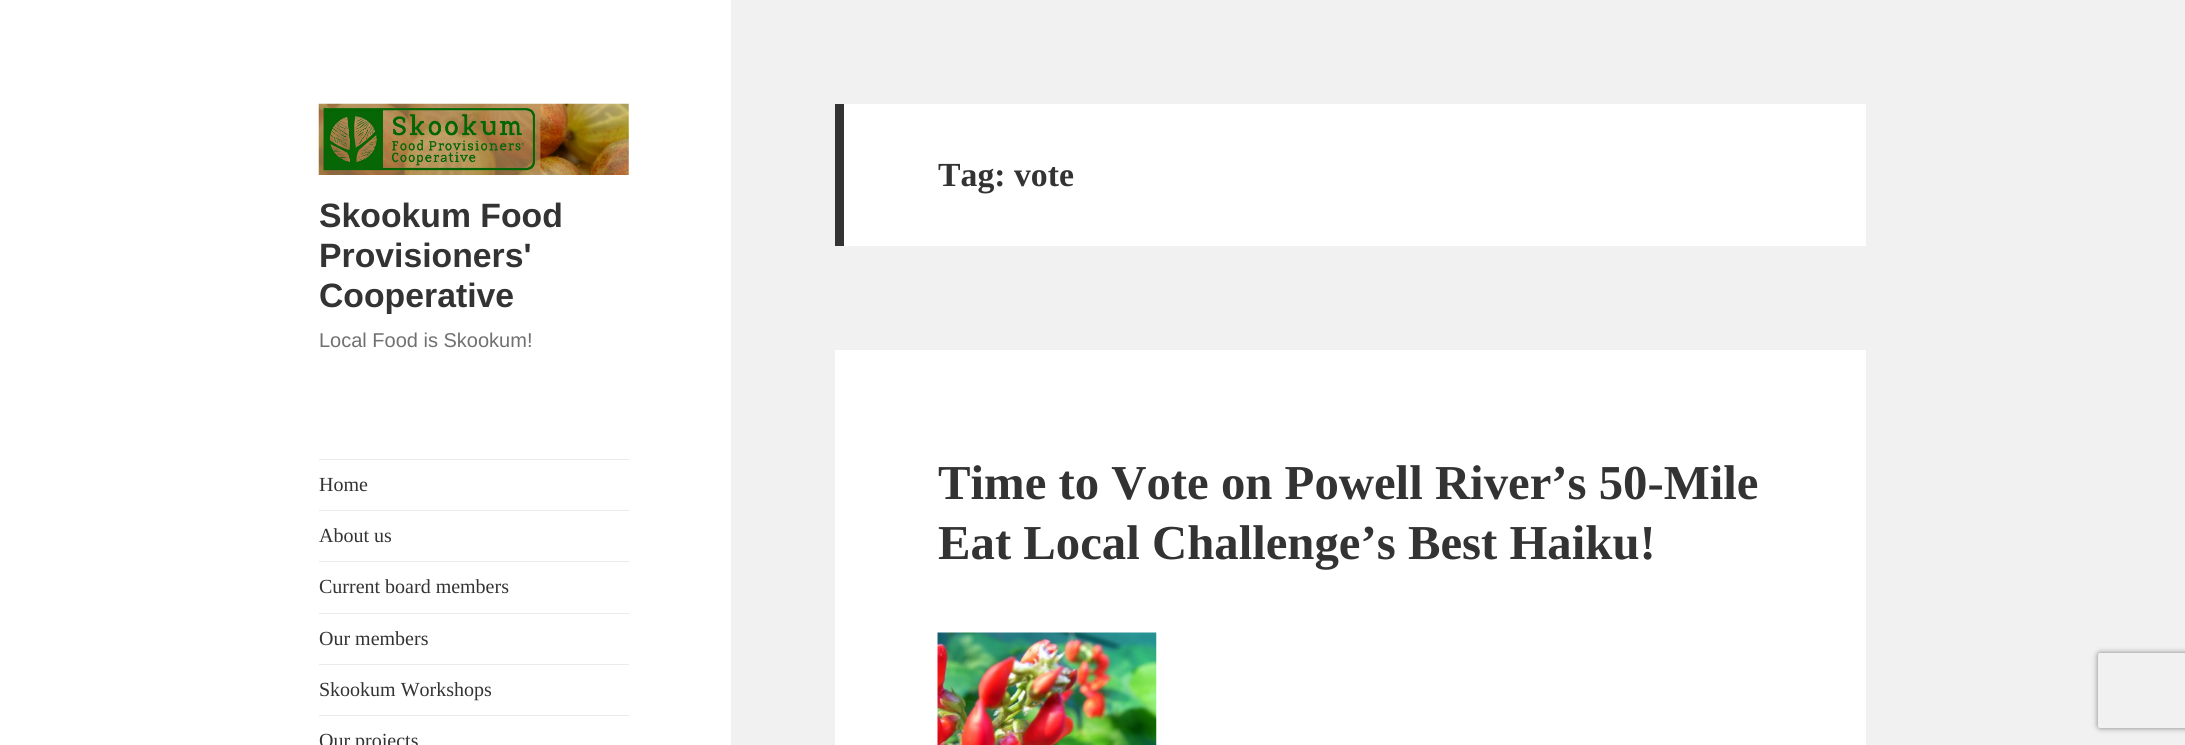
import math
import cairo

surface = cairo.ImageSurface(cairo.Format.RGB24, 2185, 745)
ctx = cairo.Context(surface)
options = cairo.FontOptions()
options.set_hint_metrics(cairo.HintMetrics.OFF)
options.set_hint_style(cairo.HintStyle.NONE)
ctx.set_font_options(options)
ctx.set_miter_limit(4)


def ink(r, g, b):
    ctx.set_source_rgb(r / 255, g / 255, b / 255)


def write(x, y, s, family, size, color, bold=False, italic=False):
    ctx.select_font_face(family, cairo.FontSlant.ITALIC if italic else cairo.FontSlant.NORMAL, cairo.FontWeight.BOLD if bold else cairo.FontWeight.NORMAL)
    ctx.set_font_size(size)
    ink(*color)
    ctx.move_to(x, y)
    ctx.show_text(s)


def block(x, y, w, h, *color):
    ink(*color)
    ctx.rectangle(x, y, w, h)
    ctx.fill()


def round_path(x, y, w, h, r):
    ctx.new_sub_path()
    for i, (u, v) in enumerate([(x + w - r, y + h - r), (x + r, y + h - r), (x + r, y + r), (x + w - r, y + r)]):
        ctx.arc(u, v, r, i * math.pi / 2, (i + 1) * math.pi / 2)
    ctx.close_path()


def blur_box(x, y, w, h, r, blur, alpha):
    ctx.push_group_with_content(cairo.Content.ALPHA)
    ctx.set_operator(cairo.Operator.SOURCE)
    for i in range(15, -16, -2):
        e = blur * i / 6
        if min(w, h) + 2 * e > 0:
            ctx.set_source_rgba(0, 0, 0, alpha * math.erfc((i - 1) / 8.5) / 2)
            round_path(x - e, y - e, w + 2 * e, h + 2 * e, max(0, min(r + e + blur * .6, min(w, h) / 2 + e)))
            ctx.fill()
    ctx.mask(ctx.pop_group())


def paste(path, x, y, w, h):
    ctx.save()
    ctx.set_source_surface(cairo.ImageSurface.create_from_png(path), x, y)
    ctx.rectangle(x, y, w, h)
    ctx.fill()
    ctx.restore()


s1 = dict(family="Liberation Sans", size=33.75, color=(51, 51, 51), bold=True)
s2 = dict(family="Liberation Sans", size=20, color=(112, 112, 112))
s3 = dict(family="Liberation Serif", size=20, color=(51, 51, 51))
s4 = dict(family="Liberation Serif", size=33.75, color=(51, 51, 51), bold=True)
s5 = dict(family="Liberation Serif", size=48.75, color=(51, 51, 51), bold=True)

ink(241, 241, 241)
ctx.paint()
block(0, 0, 731, 745, 255, 255, 255)
paste("pic1.png", 318, 103, 311, 72)
write(319, 227, "Skookum Food", **s1)
write(319, 267, "Provisioners'", **s1)
write(319, 307, "Cooperative", **s1)
write(319, 347, "Local Food is Skookum!", **s2)
block(319, 459, 310, 1, 235, 235, 235)
write(319, 491, "Home", **s3)
block(319, 510, 310, 1, 235, 235, 235)
write(319, 542, "About us", **s3)
block(319, 561, 310, 1, 235, 235, 235)
write(319, 593, "Current board members", **s3)
block(319, 613, 310, 1, 235, 235, 235)
write(319, 645, "Our members", **s3)
block(319, 664, 310, 1, 235, 235, 235)
write(319, 696, "Skookum Workshops", **s3)
block(319, 715, 310, 1, 235, 235, 235)
write(319, 747, "Our projects", **s3)
block(844, 104, 1022, 142, 255, 255, 255)
block(835, 104, 9, 142, 51, 51, 51)
write(938, 186, "Tag: vote", **s4)
block(835, 350, 1031, 395, 255, 255, 255)
write(938, 499, "Time to Vote on Powell River’s 50-Mile", **s5)
write(938, 559, "Eat Local Challenge’s Best Haiku!", **s5)
paste("pic2.png", 937, 632, 220, 113)
ctx.save()
ctx.set_fill_rule(cairo.FillRule.EVEN_ODD)
ctx.new_path()
ctx.move_to(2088, 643)
ctx.line_to(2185, 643)
ctx.line_to(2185, 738)
ctx.line_to(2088, 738)
ctx.close_path()
ctx.move_to(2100.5, 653)
ctx.line_to(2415.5, 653)
ctx.curve_to(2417, 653, 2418, 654, 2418, 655.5)
ctx.line_to(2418, 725.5)
ctx.curve_to(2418, 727, 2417, 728, 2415.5, 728)
ctx.line_to(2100.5, 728)
ctx.curve_to(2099, 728, 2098, 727, 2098, 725.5)
ctx.line_to(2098, 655.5)
ctx.curve_to(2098, 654, 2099, 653, 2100.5, 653)
ctx.close_path()
ctx.clip()
ink(128, 128, 128)
blur_box(2098, 653, 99, 75, 2.5, 3, 1)
ctx.restore()
surface.write_to_png("screenshot.png")
